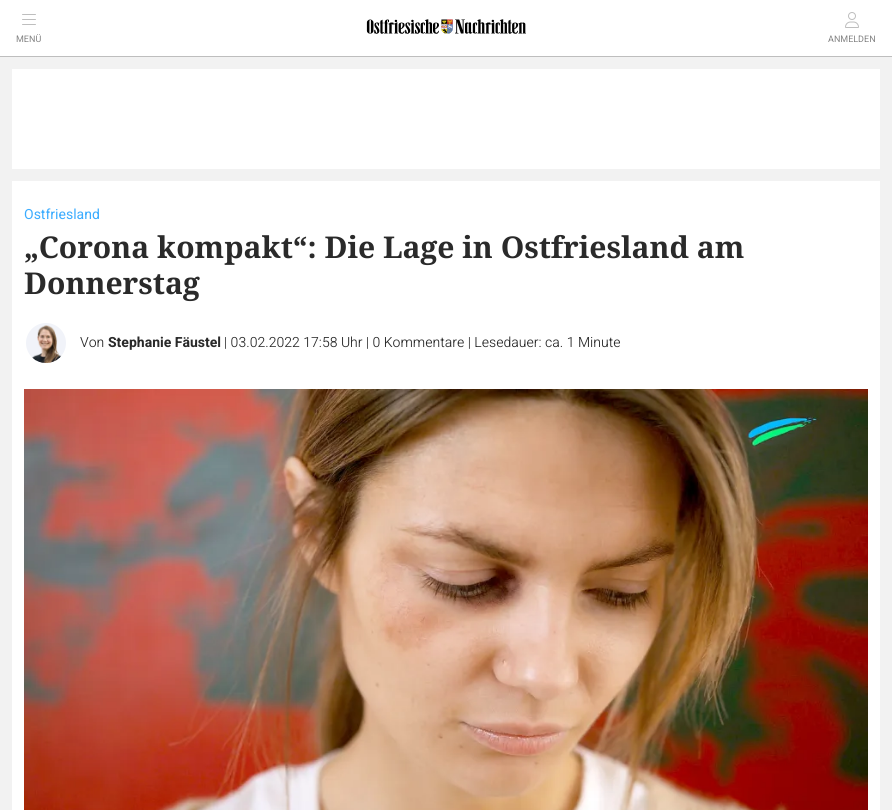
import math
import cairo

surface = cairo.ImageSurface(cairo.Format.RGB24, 892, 810)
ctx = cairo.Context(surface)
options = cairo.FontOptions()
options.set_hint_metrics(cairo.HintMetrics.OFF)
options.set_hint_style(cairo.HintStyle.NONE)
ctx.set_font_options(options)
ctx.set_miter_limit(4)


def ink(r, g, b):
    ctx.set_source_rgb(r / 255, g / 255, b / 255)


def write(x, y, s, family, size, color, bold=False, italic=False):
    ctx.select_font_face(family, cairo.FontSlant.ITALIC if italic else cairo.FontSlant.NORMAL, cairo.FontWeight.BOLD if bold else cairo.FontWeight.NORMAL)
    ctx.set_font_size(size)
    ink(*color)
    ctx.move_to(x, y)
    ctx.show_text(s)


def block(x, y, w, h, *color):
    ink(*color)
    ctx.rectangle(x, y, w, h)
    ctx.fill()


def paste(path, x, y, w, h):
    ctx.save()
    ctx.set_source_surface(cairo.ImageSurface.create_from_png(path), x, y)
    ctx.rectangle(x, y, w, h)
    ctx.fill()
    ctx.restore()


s1 = dict(family="Heebo", size=9, color=(132, 132, 132))
s2 = dict(family="Heebo", size=14, color=(59, 172, 255))
s3 = dict(family="Noto Serif", size=30, color=(42, 42, 42), bold=True)
s4 = dict(family="Heebo Light", size=14, color=(42, 42, 42))
s5 = dict(family="Heebo", size=14, color=(42, 42, 42), bold=True)

ink(242, 242, 242)
ctx.paint()
block(0, 0, 892, 56, 255, 255, 255)
block(0, 56, 892, 1, 190, 190, 190)
paste("pic1.png", 366, 19, 160, 15)
paste("pic2.png", 22, 14, 14, 11)
write(16, 42, "MENÜ", **s1)
paste("pic3.png", 845, 12, 14, 16)
write(828, 42, "ANMELDEN", **s1)
block(12, 69, 868, 100, 255, 255, 255)
block(12, 181, 868, 629, 255, 255, 255)
write(24, 219, "Ostfriesland", **s2)
write(24, 258, "„Corona kompakt“: Die Lage in Ostfriesland am", **s3)
write(24, 294, "Donnerstag", **s3)
ink(241, 243, 249)
ctx.new_path()
ctx.arc(46, 343, 21, 0, 2 * math.pi)
ctx.fill_preserve()
ink(255, 255, 255)
ctx.stroke()
paste("pic4.png", 32, 325, 30, 38)
write(80, 347, "Von", **s4)
write(108, 347, "Stephanie Fäustel", **s5)
write(224, 347, "| 03.02.2022 17:58 Uhr | 0 Kommentare | Lesedauer: ca. 1 Minute", **s4)
paste("pic5.png", 24, 389, 844, 421)
surface.write_to_png("screenshot.png")
